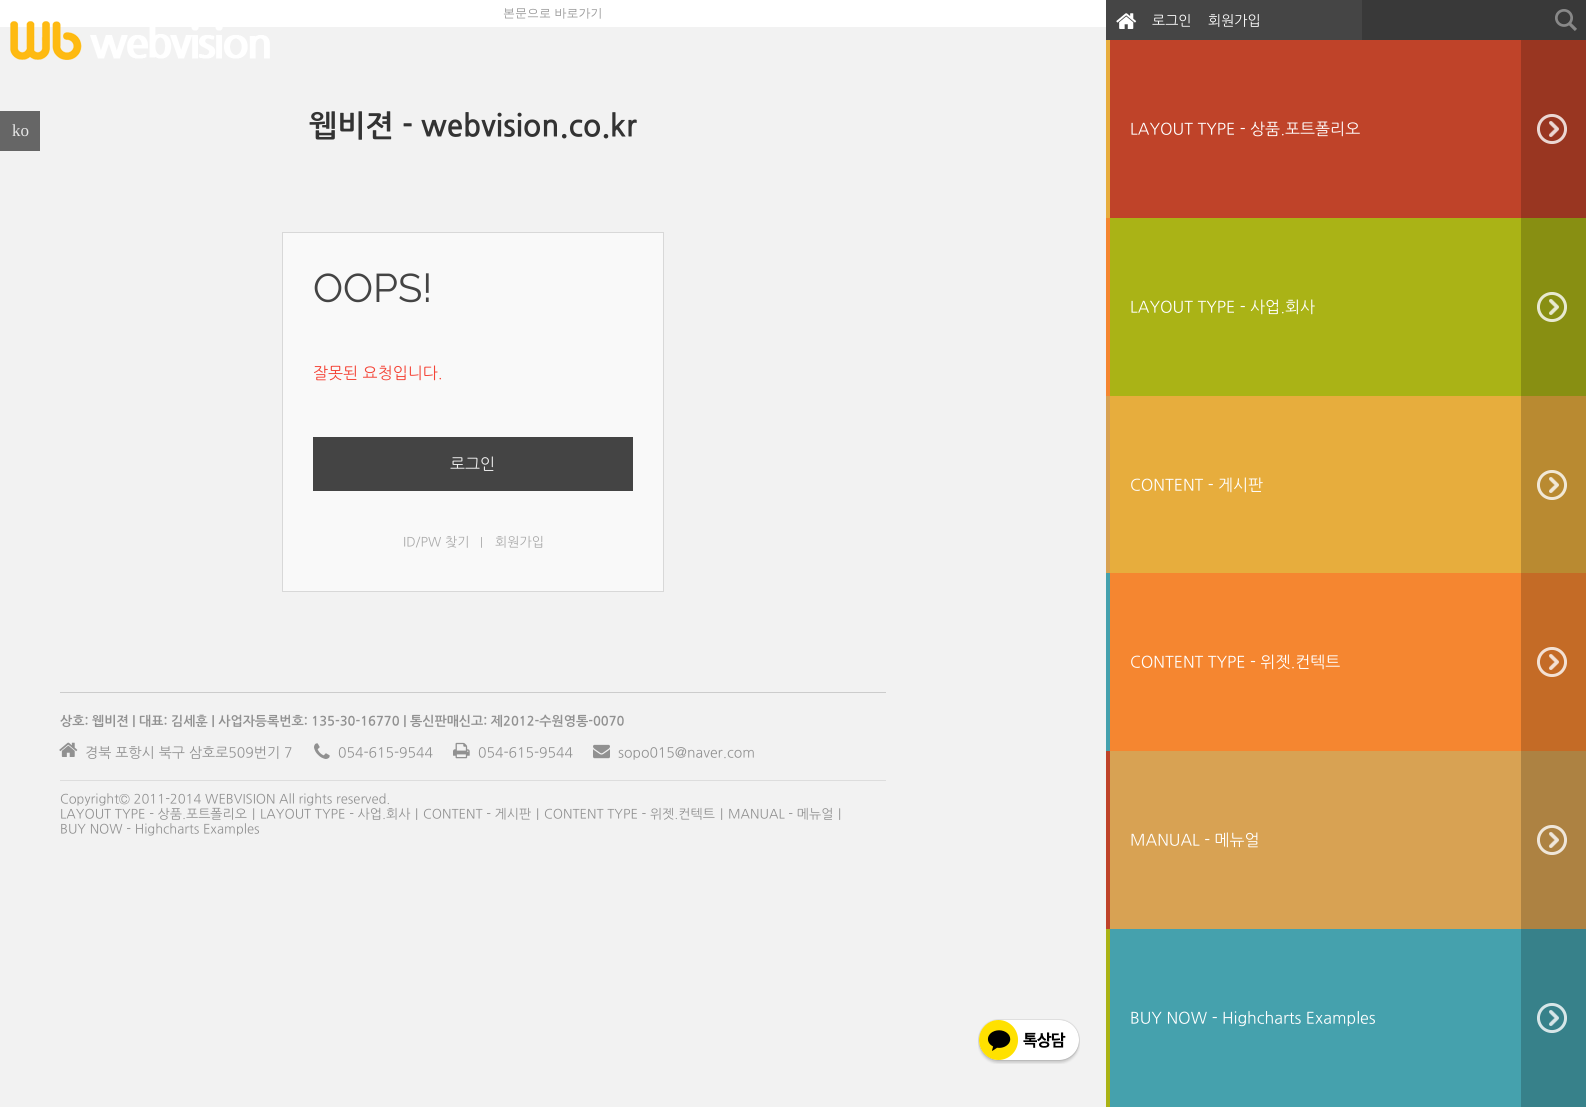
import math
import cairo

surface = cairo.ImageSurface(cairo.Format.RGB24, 1586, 1107)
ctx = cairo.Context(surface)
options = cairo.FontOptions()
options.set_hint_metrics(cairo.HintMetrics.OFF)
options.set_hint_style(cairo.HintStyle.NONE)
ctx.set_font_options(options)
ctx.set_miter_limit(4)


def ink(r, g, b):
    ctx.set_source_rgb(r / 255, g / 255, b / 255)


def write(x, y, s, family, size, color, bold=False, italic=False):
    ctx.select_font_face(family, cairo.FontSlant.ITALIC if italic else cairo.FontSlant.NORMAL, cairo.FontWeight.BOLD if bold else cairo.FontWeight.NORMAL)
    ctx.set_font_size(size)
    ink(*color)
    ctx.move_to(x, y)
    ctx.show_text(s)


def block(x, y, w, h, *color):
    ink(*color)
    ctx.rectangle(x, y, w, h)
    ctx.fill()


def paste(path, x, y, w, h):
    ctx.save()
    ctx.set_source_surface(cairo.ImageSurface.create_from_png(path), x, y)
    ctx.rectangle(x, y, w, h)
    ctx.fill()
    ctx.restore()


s1 = dict(family="Liberation Serif", size=17, color=(231, 231, 231))
s2 = dict(family="WenQuanYi Zen Hei Medium", size=12, color=(153, 153, 153))
s3 = dict(family="NanumGothic", size=30, color=(51, 51, 51), bold=True)
s4 = dict(family="Raleway", size=40, color=(68, 68, 68))
s5 = dict(family="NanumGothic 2", size=16, color=(244, 67, 54))
s6 = dict(family="NanumGothic 2", size=16, color=(238, 238, 238))
s7 = dict(family="NanumGothic 2", size=13, color=(170, 170, 170))
s8 = dict(family="NanumGothic 2", size=12, color=(170, 170, 170))
s9 = dict(family="NanumGothic", size=13, color=(145, 145, 145), bold=True)
s10 = dict(family="NanumGothic", size=14, color=(145, 145, 145))
s11 = dict(family="NanumGothic", size=13, color=(145, 145, 145))
s12 = dict(family="NanumGothic", size=14, color=(255, 255, 255))
s13 = dict(family="NanumGothic", size=16, color=(255, 255, 255))

ink(255, 255, 255)
ctx.paint()
block(0, 27, 1106, 1080, 242, 242, 242)
block(0, 111, 40, 40, 102, 102, 102)
write(12, 136, "ko", **s1)
write(503, 17, "본문으로 바로가기", **s2)
write(309, 135, "웹비젼 - webvision.co.kr", **s3)
ink(249, 249, 249)
ctx.rectangle(282.5, 232.5, 381, 359)
ctx.fill_preserve()
ink(216, 216, 216)
ctx.set_line_width(1)
ctx.stroke()
write(313, 302, "OOPS!", **s4)
write(313, 378, "잘못된 요청입니다.", **s5)
block(313, 437, 320, 54, 68, 68, 68)
write(450, 469, "로그인", **s6)
write(403, 546, "ID/PW 찾기", **s7)
write(480, 546, "|", **s8)
write(495, 546, "회원가입", **s7)
block(60, 692, 826, 1, 204, 204, 204)
write(60, 725, "상호: 웹비젼 | 대표: 김세훈 | 사업자등록번호: 135-30-16770 | 통신판매신고: 제2012-수원영통-0070", **s9)
paste("pic1.png", 59, 742, 19, 15)
write(85, 757, "경북 포항시 북구 삼호로509번기 7", **s10)
paste("pic2.png", 314, 743, 16, 16)
write(338, 757, "054-615-9544", **s10)
paste("pic3.png", 453, 742, 17, 17)
write(478, 757, "054-615-9544", **s10)
paste("pic4.png", 593, 744, 17, 15)
write(618, 757, "sopo015@naver.com", **s10)
block(60, 780, 826, 1, 221, 221, 221)
write(60, 803, "Copyright© 2011-2014 WEBVISION All rights reserved.", **s11)
write(60, 818, "LAYOUT TYPE - 상품.포트폴리오", **s11)
write(252, 818, "|", **s11)
write(260, 818, "LAYOUT TYPE - 사업.회사", **s11)
write(415, 818, "|", **s11)
write(423, 818, "CONTENT - 게시판", **s11)
write(536, 818, "|", **s11)
write(544, 818, "CONTENT TYPE - 위젯.컨텍트", **s11)
write(720, 818, "|", **s11)
write(728, 818, "MANUAL - 메뉴얼", **s11)
write(838, 818, "|", **s11)
write(60, 833, "BUY NOW - Highcharts Examples", **s11)
block(1106, 0, 256, 40, 69, 69, 69)
paste("pic5.png", 1116, 13, 21, 16)
write(1152, 25, "로그인", **s12)
write(1208, 25, "회원가입", **s12)
block(1362, 0, 224, 40, 57, 57, 57)
paste("pic6.png", 1555, 9, 22, 22)
block(1110, 40, 411, 178, 191, 67, 41)
block(1106, 40, 4, 179, 231, 173, 61)
write(1130, 134, "LAYOUT TYPE - 상품.포트폴리오", **s13)
block(1521, 40, 65, 178, 153, 54, 33)
paste("pic7.png", 1537, 114, 30, 30)
block(1110, 218, 411, 178, 170, 179, 22)
block(1106, 218, 4, 179, 245, 134, 48)
write(1130, 312, "LAYOUT TYPE - 사업.회사", **s13)
block(1521, 218, 65, 178, 136, 143, 18)
paste("pic8.png", 1537, 292, 30, 30)
block(1110, 396, 411, 177, 231, 173, 61)
block(1106, 396, 4, 178, 216, 162, 83)
write(1130, 490, "CONTENT - 게시판", **s13)
block(1521, 396, 65, 177, 185, 138, 49)
paste("pic9.png", 1537, 470, 30, 30)
block(1110, 573, 411, 178, 245, 134, 48)
block(1106, 573, 4, 179, 69, 161, 173)
write(1130, 667, "CONTENT TYPE - 위젯.컨텍트", **s13)
block(1521, 573, 65, 178, 196, 107, 38)
paste("pic10.png", 1537, 647, 30, 30)
block(1110, 751, 411, 178, 216, 162, 83)
block(1106, 751, 4, 179, 191, 67, 41)
write(1130, 845, "MANUAL - 메뉴얼", **s13)
block(1521, 751, 65, 178, 173, 130, 66)
paste("pic11.png", 1537, 825, 30, 30)
block(1110, 929, 411, 178, 69, 161, 173)
block(1106, 929, 4, 178, 170, 179, 22)
write(1130, 1023, "BUY NOW - Highcharts Examples", **s13)
block(1521, 929, 65, 178, 55, 129, 138)
paste("pic12.png", 1537, 1003, 30, 30)
paste("pic13.png", 10, 21, 260, 39)
paste("pic14.png", 978, 1019, 102, 45)
surface.write_to_png("screenshot.png")
